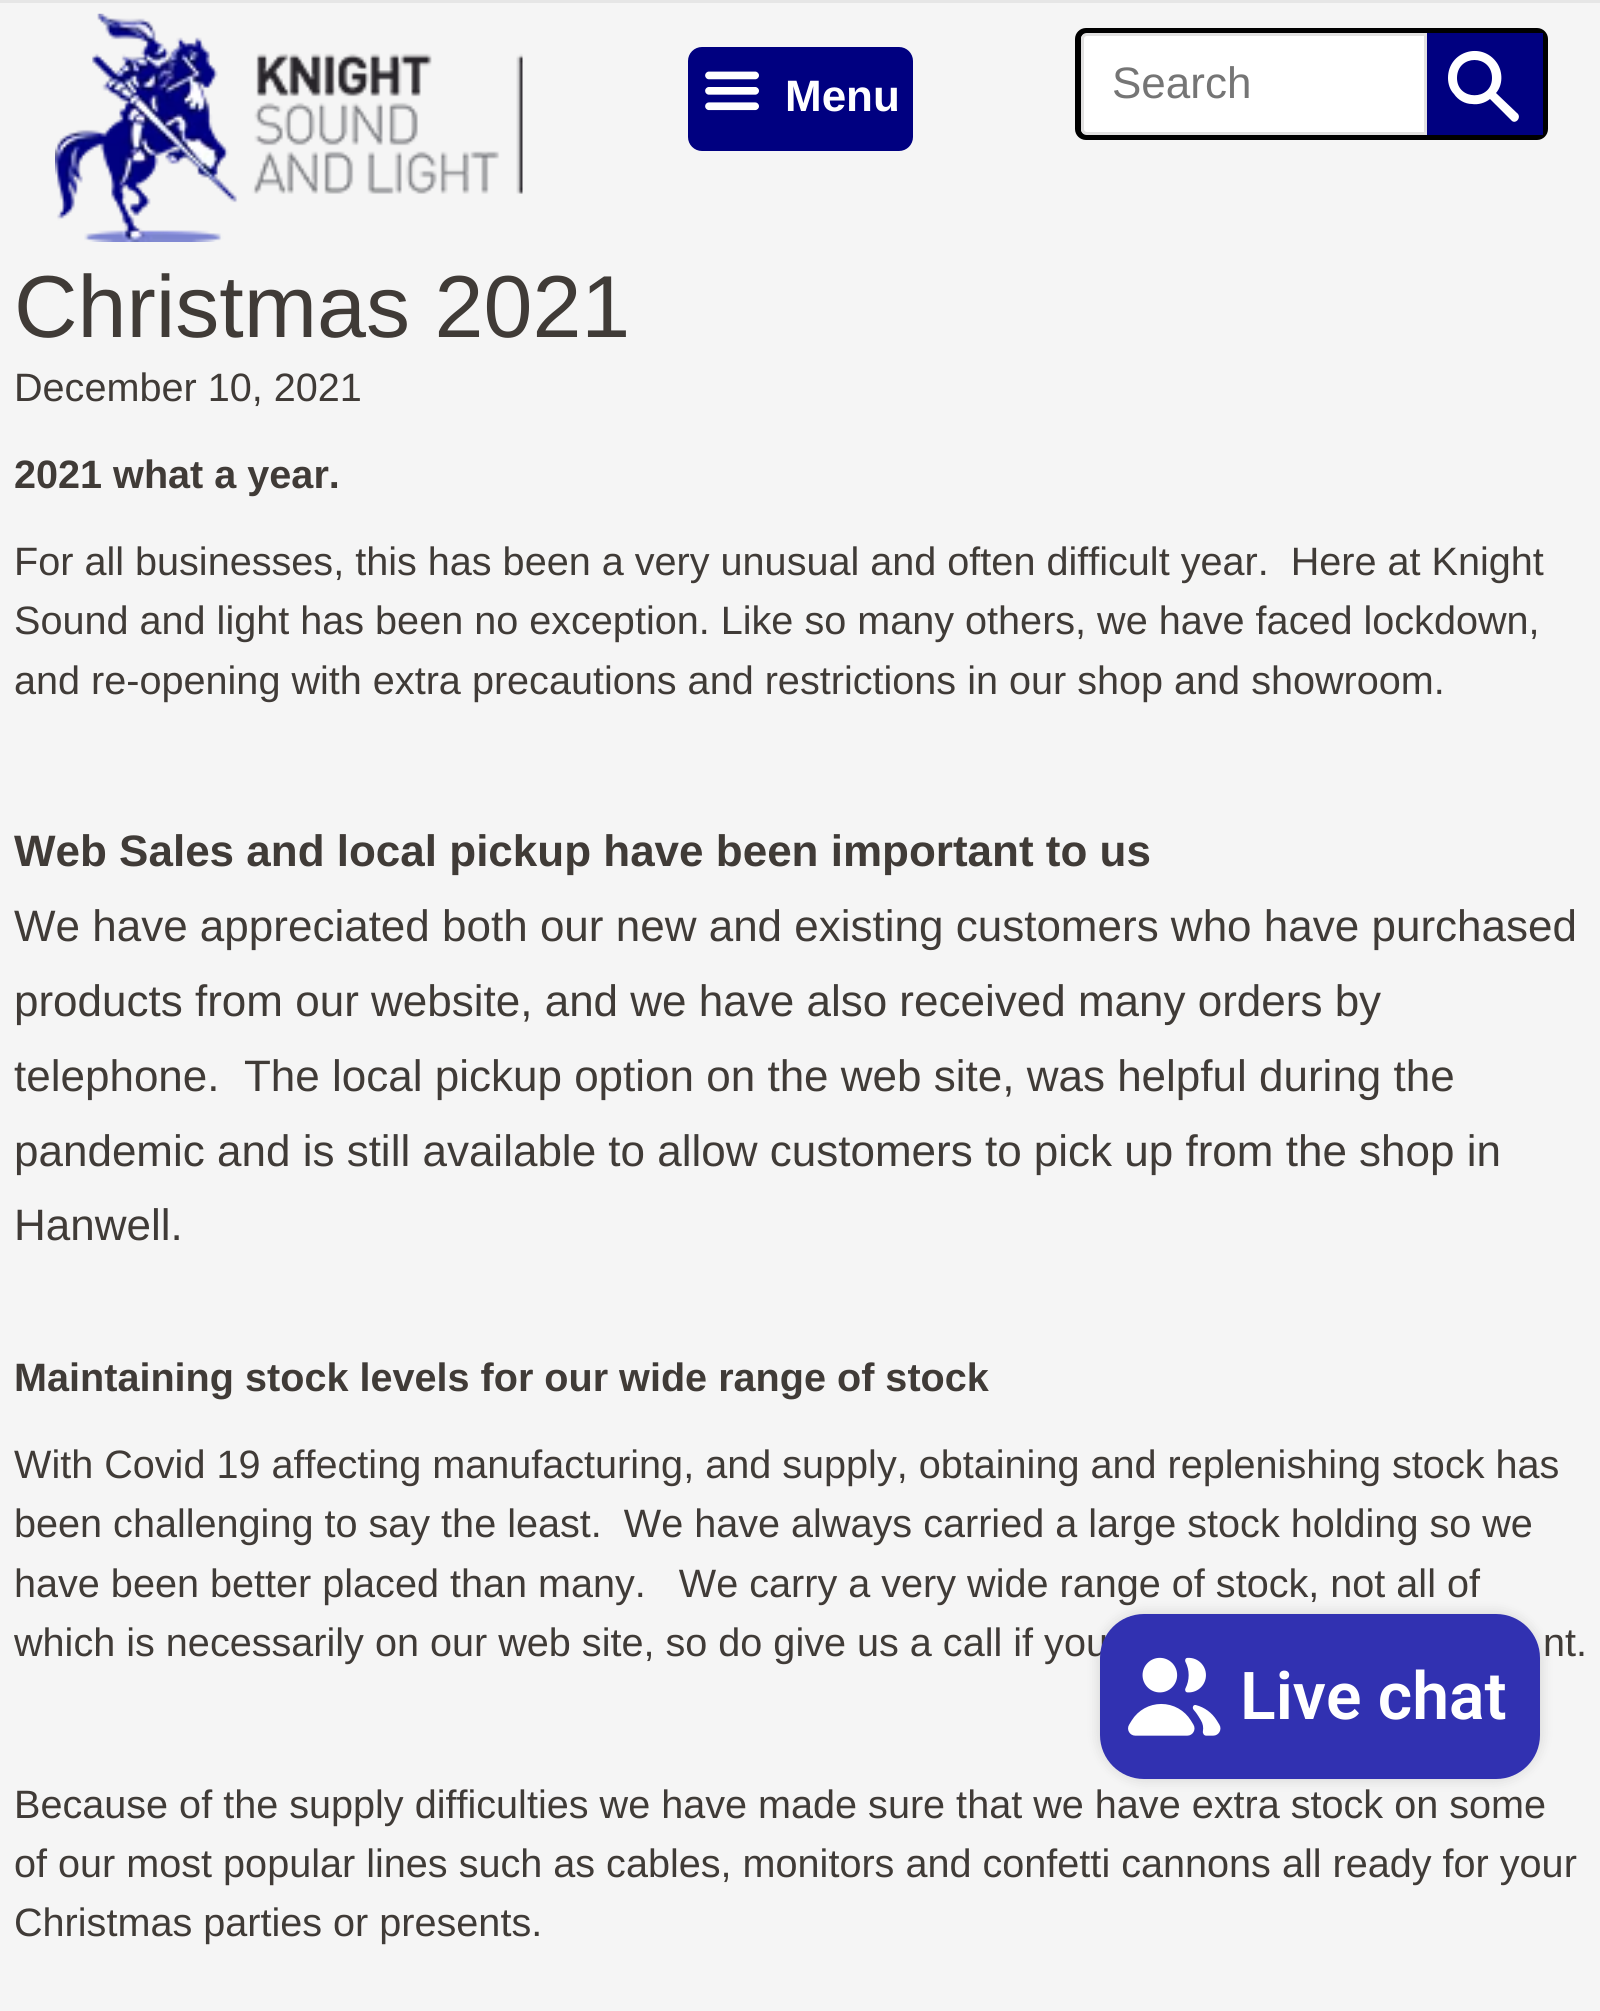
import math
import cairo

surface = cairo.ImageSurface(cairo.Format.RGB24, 1600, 2011)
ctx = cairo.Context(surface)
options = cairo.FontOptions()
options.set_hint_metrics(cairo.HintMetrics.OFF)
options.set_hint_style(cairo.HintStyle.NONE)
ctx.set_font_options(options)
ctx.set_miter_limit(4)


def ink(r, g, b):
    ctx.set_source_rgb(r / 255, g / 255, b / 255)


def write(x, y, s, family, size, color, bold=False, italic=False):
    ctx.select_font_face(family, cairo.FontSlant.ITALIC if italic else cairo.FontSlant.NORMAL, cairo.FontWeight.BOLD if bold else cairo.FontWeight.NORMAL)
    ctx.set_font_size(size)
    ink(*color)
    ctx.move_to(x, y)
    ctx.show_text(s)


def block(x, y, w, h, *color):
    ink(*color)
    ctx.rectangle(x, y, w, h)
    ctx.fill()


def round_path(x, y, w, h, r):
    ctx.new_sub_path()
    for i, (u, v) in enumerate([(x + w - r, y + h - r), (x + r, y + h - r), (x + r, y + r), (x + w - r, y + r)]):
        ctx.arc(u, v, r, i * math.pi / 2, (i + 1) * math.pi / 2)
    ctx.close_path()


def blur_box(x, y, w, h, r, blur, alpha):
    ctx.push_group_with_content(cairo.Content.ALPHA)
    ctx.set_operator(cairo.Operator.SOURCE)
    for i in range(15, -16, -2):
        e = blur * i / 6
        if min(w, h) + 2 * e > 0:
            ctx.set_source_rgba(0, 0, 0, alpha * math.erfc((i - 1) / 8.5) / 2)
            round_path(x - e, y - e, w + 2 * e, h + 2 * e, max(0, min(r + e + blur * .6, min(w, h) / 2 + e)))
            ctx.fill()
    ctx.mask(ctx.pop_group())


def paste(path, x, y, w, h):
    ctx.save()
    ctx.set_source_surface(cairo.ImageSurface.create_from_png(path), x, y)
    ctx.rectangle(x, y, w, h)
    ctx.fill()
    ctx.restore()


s1 = dict(family="Liberation Sans", size=44, color=(255, 255, 255), bold=True)
s2 = dict(family="Liberation Sans", size=44, color=(117, 117, 117))
s3 = dict(family="Liberation Sans", size=88, color=(64, 59, 55))
s4 = dict(family="Liberation Sans", size=39.6, color=(64, 59, 55))
s5 = dict(family="Liberation Sans", size=39.6, color=(64, 59, 55), bold=True)
s6 = dict(family="Liberation Sans", size=44, color=(64, 59, 55), bold=True)
s7 = dict(family="Liberation Sans", size=44, color=(64, 59, 55))
s8 = dict(family="Roboto SemiBold", size=66, color=(255, 255, 255))

ink(245, 245, 245)
ctx.paint()
block(0, 0, 1600, 3, 230, 230, 230)
paste("pic1.png", 55, 13, 468, 229)
ink(0, 0, 128)
round_path(688, 47, 225, 104, 14)
ctx.fill()
paste("pic2.png", 705, 71, 54, 40)
write(785, 111, "Menu", **s1)
round_path(1078, 31, 467, 106, 8)
ink(0, 0, 0)
ctx.set_line_width(6)
ctx.stroke()
ink(255, 255, 255)
ctx.new_path()
ctx.move_to(1087, 33)
ctx.line_to(1427, 33)
ctx.line_to(1427, 135)
ctx.line_to(1087, 135)
ctx.curve_to(1083.5, 135, 1081, 132.5, 1081, 129)
ctx.line_to(1081, 39)
ctx.curve_to(1081, 35.5, 1083.5, 33, 1087, 33)
ctx.close_path()
ctx.fill()
ctx.new_path()
ctx.move_to(1087, 34.5)
ctx.line_to(1425.5, 34.5)
ctx.line_to(1425.5, 133.5)
ctx.line_to(1087, 133.5)
ctx.curve_to(1084.5, 133.5, 1082.5, 131.5, 1082.5, 129)
ctx.line_to(1082.5, 39)
ctx.curve_to(1082.5, 36.5, 1084.5, 34.5, 1087, 34.5)
ctx.close_path()
ctx.set_source_rgba(0.251, 0.231, 0.216, 0.15)
ctx.set_line_width(3)
ctx.stroke()
write(1112, 98, "Search", **s2)
block(1427, 33, 116, 102, 0, 0, 128)
ink(255, 255, 255)
ctx.new_path()
ctx.move_to(1518, 114)
ctx.line_to(1496, 93)
ctx.curve_to(1503, 85, 1503, 72, 1497, 63)
ctx.curve_to(1482, 41, 1448, 51, 1448, 78)
ctx.curve_to(1448, 84, 1450, 90, 1454, 94)
ctx.curve_to(1458, 100, 1465, 104, 1472, 104)
ctx.curve_to(1478, 105, 1485, 103, 1490, 99)
ctx.line_to(1512, 121)
ctx.curve_to(1516, 124, 1521, 118, 1518, 114)
ctx.close_path()
ctx.move_to(1457, 78)
ctx.curve_to(1457, 54, 1492, 54, 1492, 78)
ctx.curve_to(1492, 101, 1457, 101, 1457, 78)
ctx.close_path()
ctx.fill()
write(14, 337, "Christmas 2021", **s3)
write(14, 401, "December 10, 2021", **s4)
write(14, 488, "2021 what a year.", **s5)
write(14, 575, "For all businesses, this has been a very unusual and often difficult year.  Here at Knight", **s4)
write(14, 634, "Sound and light has been no exception. Like so many others, we have faced lockdown,", **s4)
write(14, 694, "and re-opening with extra precautions and restrictions in our shop and showroom.", **s4)
write(14, 866, "Web Sales and local pickup have been important to us", **s6)
write(14, 941, "We have appreciated both our new and existing customers who have purchased", **s7)
write(14, 1016, "products from our website, and we have also received many orders by", **s7)
write(14, 1091, "telephone.  The local pickup option on the web site, was helpful during the", **s7)
write(14, 1166, "pandemic and is still available to allow customers to pick up from the shop in", **s7)
write(14, 1240, "Hanwell.", **s7)
write(14, 1391, "Maintaining stock levels for our wide range of stock", **s5)
write(14, 1478, "With Covid 19 affecting manufacturing, and supply, obtaining and replenishing stock has", **s4)
write(14, 1537, "been challenging to say the least.  We have always carried a large stock holding so we", **s4)
write(14, 1597, "have been better placed than many.   We carry a very wide range of stock, not all of", **s4)
write(14, 1656, "which is necessarily on our web site, so do give us a call if you", **s4)
write(1543, 1656, "nt.", **s4)
write(14, 1818, "Because of the supply difficulties we have made sure that we have extra stock on some", **s4)
write(14, 1877, "of our most popular lines such as cables, monitors and confetti cannons all ready for your", **s4)
write(14, 1936, "Christmas parties or presents.", **s4)
ink(0, 0, 0)
blur_box(1100, 1614, 440, 165, 44, 7, 0.15)
ink(49, 49, 177)
round_path(1100, 1614, 440, 165, 44)
ctx.fill()
paste("pic3.png", 1128, 1657, 93, 79)
write(1240, 1719, "Live chat", **s8)
surface.write_to_png("screenshot.png")
